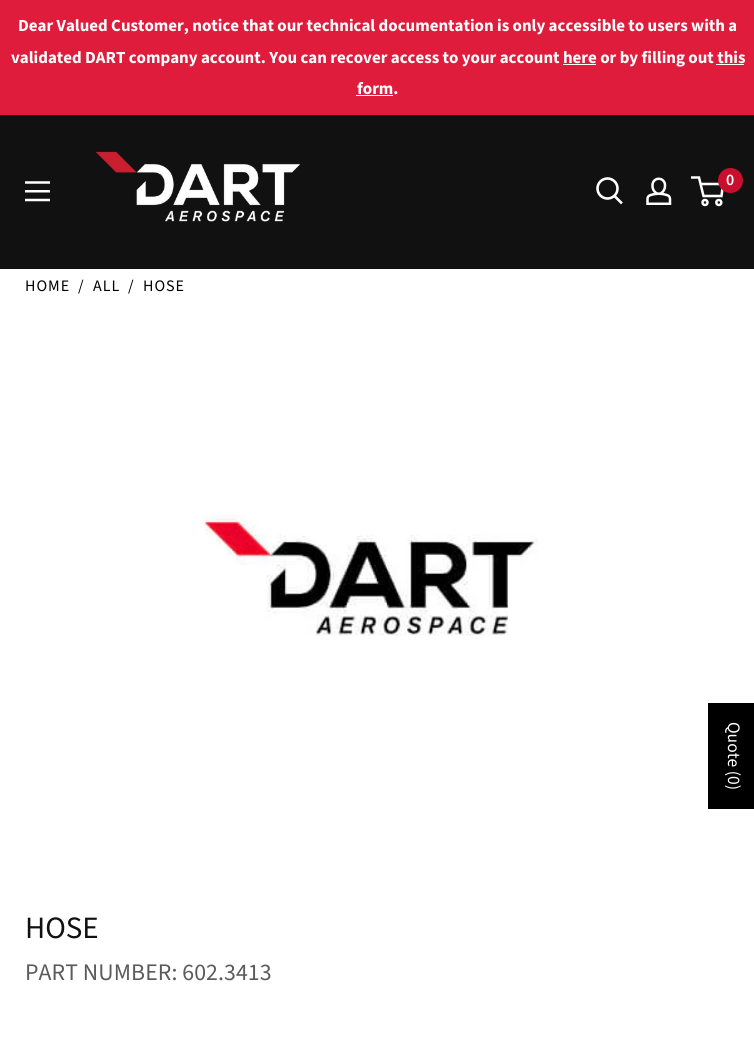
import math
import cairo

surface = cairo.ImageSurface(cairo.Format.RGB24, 754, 1040)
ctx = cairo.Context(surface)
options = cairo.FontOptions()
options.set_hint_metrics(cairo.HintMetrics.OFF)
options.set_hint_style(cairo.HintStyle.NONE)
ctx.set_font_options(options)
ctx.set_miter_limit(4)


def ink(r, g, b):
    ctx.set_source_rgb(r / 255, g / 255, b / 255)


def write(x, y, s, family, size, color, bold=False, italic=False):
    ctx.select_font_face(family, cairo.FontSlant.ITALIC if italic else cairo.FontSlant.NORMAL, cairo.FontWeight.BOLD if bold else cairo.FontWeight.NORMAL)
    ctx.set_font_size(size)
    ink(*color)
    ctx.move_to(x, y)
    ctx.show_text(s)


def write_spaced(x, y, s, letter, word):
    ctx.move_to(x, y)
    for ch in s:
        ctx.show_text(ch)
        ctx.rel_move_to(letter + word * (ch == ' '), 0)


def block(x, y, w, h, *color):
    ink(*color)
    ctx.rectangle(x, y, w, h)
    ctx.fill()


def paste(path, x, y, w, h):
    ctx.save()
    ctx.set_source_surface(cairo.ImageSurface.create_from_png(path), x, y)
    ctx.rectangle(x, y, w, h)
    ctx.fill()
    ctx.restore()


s1 = dict(family="Source Sans Pro", size=16.9, color=(255, 255, 255), bold=True)
s2 = dict(family="Source Sans Pro SemiBold", size=16, color=(255, 255, 255))
s3 = dict(family="Source Sans Pro", size=31, color=(17, 17, 17))
s4 = dict(family="Source Sans Pro", size=17.5, color=(255, 255, 255))

ink(255, 255, 255)
ctx.paint()
block(0, 0, 754, 115, 223, 28, 60)
write(18, 31, "Dear Valued Customer, notice that our technical documentation is only accessible to users with a", **s1)
write(11, 63, "validated DART company account. You can recover access to your account here or by filling out this", **s1)
block(563, 64, 33, 1, 255, 255, 255)
block(716, 64, 28, 1, 255, 255, 255)
write(357, 94, "form.", **s1)
block(356, 95, 37, 1, 255, 255, 255)
block(0, 115, 754, 154, 17, 17, 17)
paste("pic1.png", 25, 181, 25, 21)
paste("pic2.png", 95, 151, 205, 71)
ctx.new_path()
ctx.move_to(621, 202.5)
ctx.line_to(614.5, 196)
ink(255, 255, 255)
ctx.set_line_width(2.6)
ctx.set_line_cap(cairo.LineCap.SQUARE)
ctx.stroke()
ctx.arc(607.5, 188.5, 10, 0, 2 * math.pi)
ctx.set_line_cap(cairo.LineCap.BUTT)
ctx.stroke()
paste("pic3.png", 646, 177, 26, 28)
ctx.arc(705, 202.5, 2.5, 0, 2 * math.pi)
ctx.set_line_width(2.5)
ctx.stroke()
ctx.arc(718.8, 202.5, 2.5, 0, 2 * math.pi)
ctx.stroke()
ctx.new_path()
ctx.move_to(700.5, 184)
ctx.line_to(723, 184)
ctx.line_to(721.5, 196)
ctx.line_to(703.5, 196)
ctx.line_to(699, 177.5)
ctx.line_to(691, 177.5)
ctx.stroke()
ink(200, 16, 46)
ctx.arc(730.5, 180.5, 12.5, 0, 2 * math.pi)
ctx.fill()
write(726, 185, "0", **s2)
ctx.select_font_face("Source Sans Pro")
ink(0, 0, 0)
write_spaced(25, 291, "HOME", 1, 0)
write_spaced(78, 291, "/", 1, 0)
write_spaced(93, 291, "ALL", 1, 0)
write_spaced(128, 291, "/", 1, 0)
write_spaced(143, 291, "HOSE", 1, 0)
paste("pic4.png", 203, 515, 335, 121)
write(25, 938, "HOSE", **s3)
ctx.set_font_size(23.75)
ink(91, 91, 91)
write_spaced(25, 980, "PART NUMBER: 602.3413", 0.1, 0)
block(708, 703, 46, 106, 0, 0, 0)
ctx.save()
ctx.translate(728, 722)
ctx.rotate(90 * math.pi / 180)
write(0, 0, "Quote (0)", **s4)
ctx.restore()
surface.write_to_png("screenshot.png")
